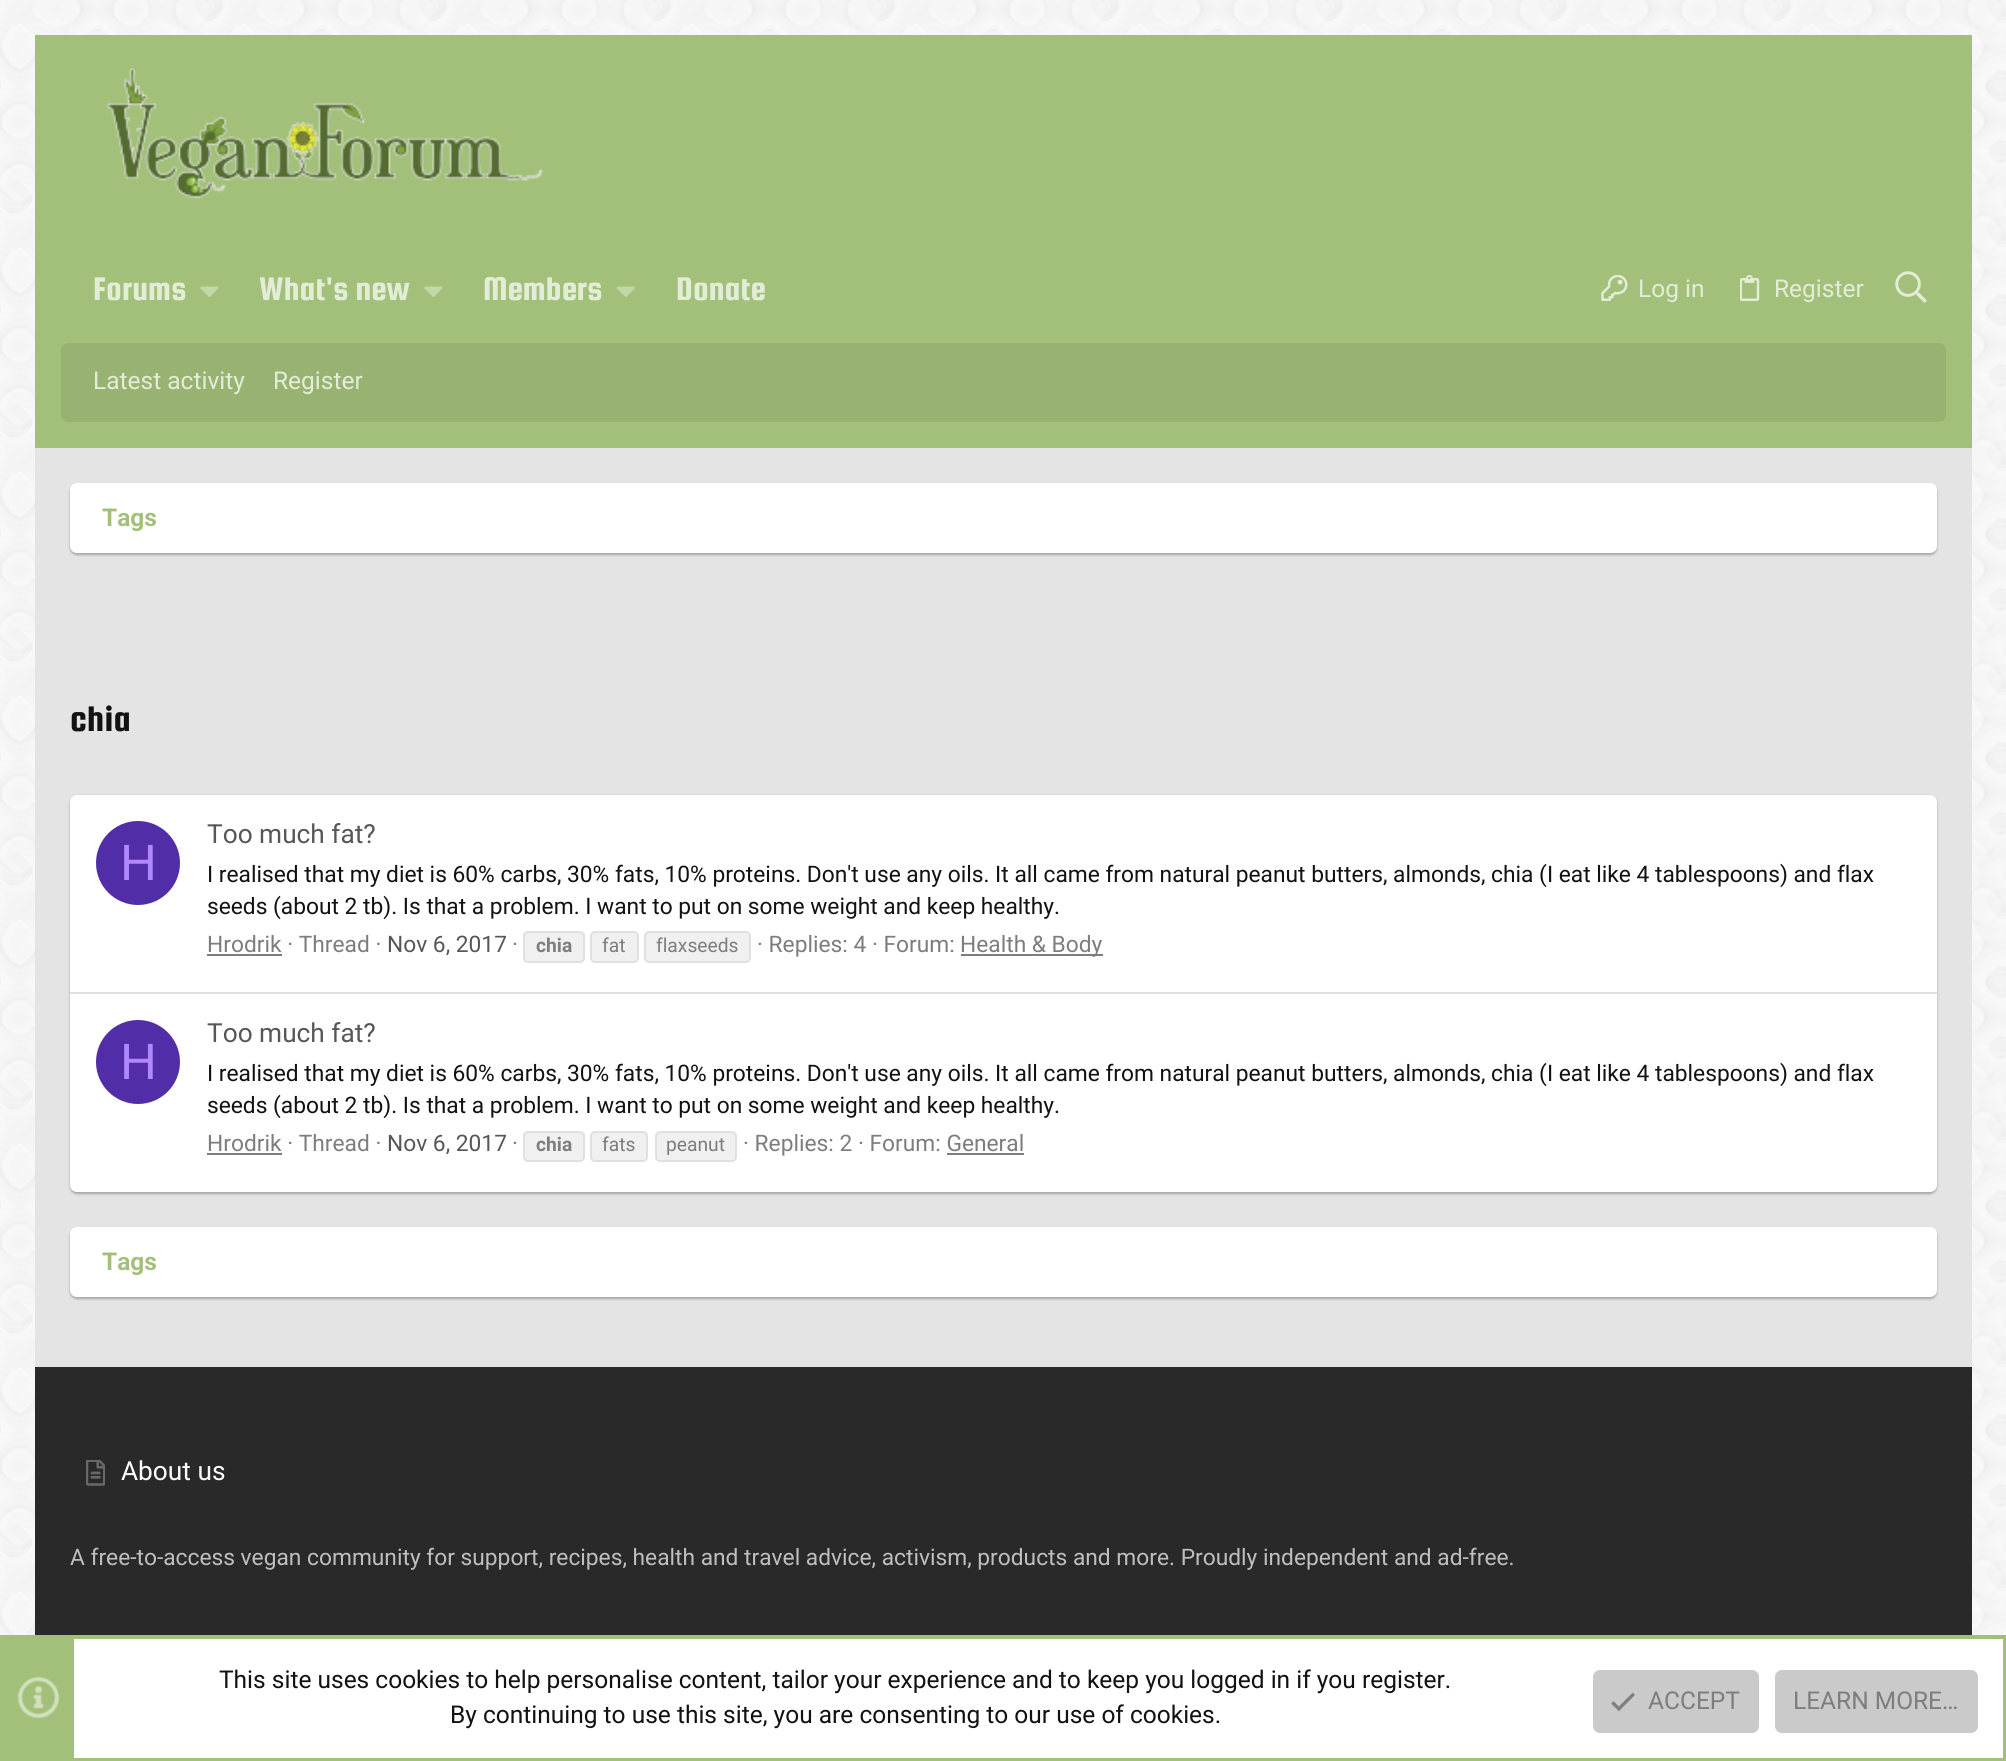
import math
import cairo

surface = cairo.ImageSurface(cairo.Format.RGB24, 2006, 1761)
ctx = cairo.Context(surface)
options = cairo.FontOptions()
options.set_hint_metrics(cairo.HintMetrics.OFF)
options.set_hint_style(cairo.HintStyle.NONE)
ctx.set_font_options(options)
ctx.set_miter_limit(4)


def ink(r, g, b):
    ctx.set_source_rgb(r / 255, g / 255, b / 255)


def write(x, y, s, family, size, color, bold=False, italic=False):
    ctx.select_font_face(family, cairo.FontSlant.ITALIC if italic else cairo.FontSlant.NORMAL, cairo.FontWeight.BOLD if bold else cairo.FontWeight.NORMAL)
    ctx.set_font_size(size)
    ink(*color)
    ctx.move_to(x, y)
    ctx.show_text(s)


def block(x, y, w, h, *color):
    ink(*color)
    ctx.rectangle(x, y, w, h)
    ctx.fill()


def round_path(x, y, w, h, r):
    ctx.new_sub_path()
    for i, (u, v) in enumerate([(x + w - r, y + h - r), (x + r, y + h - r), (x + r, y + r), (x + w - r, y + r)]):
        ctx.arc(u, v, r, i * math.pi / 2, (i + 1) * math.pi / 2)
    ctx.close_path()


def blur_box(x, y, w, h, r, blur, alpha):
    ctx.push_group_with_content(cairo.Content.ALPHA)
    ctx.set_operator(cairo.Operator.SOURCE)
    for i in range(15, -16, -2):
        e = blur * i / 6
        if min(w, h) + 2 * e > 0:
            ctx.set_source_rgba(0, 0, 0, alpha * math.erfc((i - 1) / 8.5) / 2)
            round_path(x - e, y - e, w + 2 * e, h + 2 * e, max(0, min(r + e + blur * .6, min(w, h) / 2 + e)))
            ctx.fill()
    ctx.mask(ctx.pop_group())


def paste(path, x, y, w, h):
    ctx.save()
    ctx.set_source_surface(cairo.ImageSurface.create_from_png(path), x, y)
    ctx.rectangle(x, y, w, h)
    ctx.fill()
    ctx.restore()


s1 = dict(family="Squada One", size=35, color=(227, 236, 215))
s2 = dict(family="Roboto", size=24.5, color=(227, 236, 215))
s3 = dict(family="Roboto", size=24.5, color=(163, 192, 122), bold=True)
s4 = dict(family="Squada One", size=38, color=(18, 18, 18))
s5 = dict(family="Liberation Sans", size=51, color=(179, 136, 255))
s6 = dict(family="Roboto", size=26.25, color=(87, 87, 87))
s7 = dict(family="Roboto", size=22.75, color=(18, 18, 18))
s8 = dict(family="Roboto", size=22.75, color=(125, 125, 125))
s9 = dict(family="Roboto", size=22.75, color=(87, 87, 87))
s10 = dict(family="Roboto", size=19.25, color=(125, 125, 125), bold=True)
s11 = dict(family="Roboto", size=19.25, color=(125, 125, 125))
s12 = dict(family="Roboto", size=26.25, color=(255, 255, 255))
s13 = dict(family="Roboto", size=22.75, color=(191, 191, 191))
s14 = dict(family="Roboto", size=24.5, color=(18, 18, 18))
s15 = dict(family="Roboto", size=24.5, color=(125, 125, 125))

ink(255, 255, 255)
ctx.paint()
paste("pic1.png", 0, 0, 2006, 1635)
block(35, 448, 1937, 919, 228, 228, 228)
block(35, 35, 1937, 413, 163, 192, 122)
paste("pic2.png", 106, 68, 437, 131)
write(93, 300, "Forums", **s1)
paste("pic3.png", 200, 286, 19, 11)
write(259, 300, "What's new", **s1)
paste("pic3.png", 424, 286, 19, 11)
write(483, 300, "Members", **s1)
paste("pic4.png", 616, 286, 19, 11)
write(676, 300, "Donate", **s1)
paste("pic5.png", 1601, 275, 27, 26)
write(1638, 297, "Log in", **s2)
paste("pic6.png", 1740, 275, 20, 26)
write(1774, 297, "Register", **s2)
paste("pic7.png", 1895, 271, 32, 32)
ink(152, 179, 113)
round_path(61, 343, 1885, 79, 7)
ctx.fill()
write(93, 389, "Latest activity", **s2)
write(273, 389, "Register", **s2)
ink(0, 0, 0)
blur_box(70, 485, 1867, 70, 7, 2, 0.05)
blur_box(70, 485, 1867, 70, 7, 1, 0.1)
blur_box(70, 485, 1867, 70, 7, 1, 0.15)
ink(255, 255, 255)
round_path(70, 483, 1867, 70, 7)
ctx.fill()
write(102, 526, "Tags", **s3)
write(70, 731, "chia", **s4)
ink(0, 0, 0)
blur_box(70, 796, 1867, 398, 7, 2, 0.05)
blur_box(70, 796, 1867, 398, 7, 1, 0.1)
blur_box(70, 796, 1867, 398, 7, 1, 0.15)
ink(255, 255, 255)
round_path(70, 795, 1867, 397, 7)
ctx.fill()
ink(81, 45, 168)
ctx.arc(138, 863, 42, 0, 2 * math.pi)
ctx.fill()
write(120, 880, "H", **s5)
write(207, 843, "Too much fat?", **s6)
write(207, 882, "I realised that my diet is 60% carbs, 30% fats, 10% proteins. Don't use any oils. It all came from natural peanut butters, almonds, chia (I eat like 4 tablespoons) and flax", **s7)
write(207, 914, "seeds (about 2 tb). Is that a problem. I want to put on some weight and keep healthy.", **s7)
write(207, 952, "Hrodrik · Thread ·", **s8)
block(207, 954, 75, 2, 125, 125, 125)
write(387, 952, "Nov 6, 2017", **s9)
write(512, 952, "·", **s8)
ink(240, 240, 240)
round_path(524, 932, 60, 30, 4)
ctx.fill_preserve()
ink(224, 224, 224)
ctx.stroke()
write(536, 952, "chia", **s10)
ink(240, 240, 240)
round_path(591, 932, 47, 30, 4)
ctx.fill_preserve()
ink(224, 224, 224)
ctx.stroke()
write(602, 952, "fat", **s11)
ink(240, 240, 240)
round_path(645, 932, 105, 30, 4)
ctx.fill_preserve()
ink(224, 224, 224)
ctx.stroke()
write(656, 952, "flaxseeds", **s11)
write(757, 952, "· Replies: 4 · Forum:", **s8)
block(961, 954, 142, 2, 125, 125, 125)
write(960, 952, "Health & Body", **s8)
block(70, 992, 1867, 2, 224, 224, 224)
ink(81, 45, 168)
ctx.new_path()
ctx.arc(138, 1062, 42, 0, 2 * math.pi)
ctx.fill()
write(120, 1079, "H", **s5)
write(207, 1042, "Too much fat?", **s6)
write(207, 1081, "I realised that my diet is 60% carbs, 30% fats, 10% proteins. Don't use any oils. It all came from natural peanut butters, almonds, chia (I eat like 4 tablespoons) and flax", **s7)
write(207, 1113, "seeds (about 2 tb). Is that a problem. I want to put on some weight and keep healthy.", **s7)
write(207, 1151, "Hrodrik · Thread ·", **s8)
block(207, 1153, 75, 2, 125, 125, 125)
write(387, 1151, "Nov 6, 2017", **s9)
write(512, 1151, "·", **s8)
ink(240, 240, 240)
round_path(524, 1132, 60, 29, 4)
ctx.fill_preserve()
ink(224, 224, 224)
ctx.stroke()
write(536, 1151, "chia", **s10)
ink(240, 240, 240)
round_path(591, 1132, 56, 29, 4)
ctx.fill_preserve()
ink(224, 224, 224)
ctx.stroke()
write(602, 1151, "fats", **s11)
ink(240, 240, 240)
round_path(656, 1132, 80, 29, 4)
ctx.fill_preserve()
ink(224, 224, 224)
ctx.stroke()
write(666, 1151, "peanut", **s11)
write(743, 1151, "· Replies: 2 · Forum: General", **s8)
block(947, 1153, 77, 2, 125, 125, 125)
ink(0, 0, 0)
blur_box(70, 1229, 1867, 70, 7, 2, 0.05)
blur_box(70, 1229, 1867, 70, 7, 1, 0.1)
blur_box(70, 1229, 1867, 70, 7, 1, 0.15)
ink(255, 255, 255)
round_path(70, 1227, 1867, 70, 7)
ctx.fill()
write(102, 1270, "Tags", **s3)
block(35, 1367, 1937, 268, 41, 41, 41)
paste("pic8.png", 86, 1460, 19, 26)
write(121, 1480, "About us", **s12)
write(70, 1565, "A free-to-access vegan community for support, recipes, health and travel advice, activism, products and more. Proudly independent and ad-free.", **s13)
ctx.rectangle(2, 1637, 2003, 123)
ink(163, 192, 122)
ctx.set_line_width(4)
ctx.stroke()
block(4, 1639, 70, 119, 163, 192, 122)
paste("pic9.png", 17, 1676, 43, 43)
write(219, 1688, "This site uses cookies to help personalise content, tailor your experience and to keep you logged in if you register.", **s14)
write(450, 1723, "By continuing to use this site, you are consenting to our use of cookies.", **s14)
ink(202, 202, 202)
round_path(1593, 1670, 166, 63, 7)
ctx.fill()
paste("pic10.png", 1611, 1692, 24, 20)
write(1648, 1709, "ACCEPT", **s15)
ink(202, 202, 202)
round_path(1775, 1670, 203, 63, 7)
ctx.fill()
write(1793, 1709, "LEARN MORE…", **s15)
surface.write_to_png("screenshot.png")
